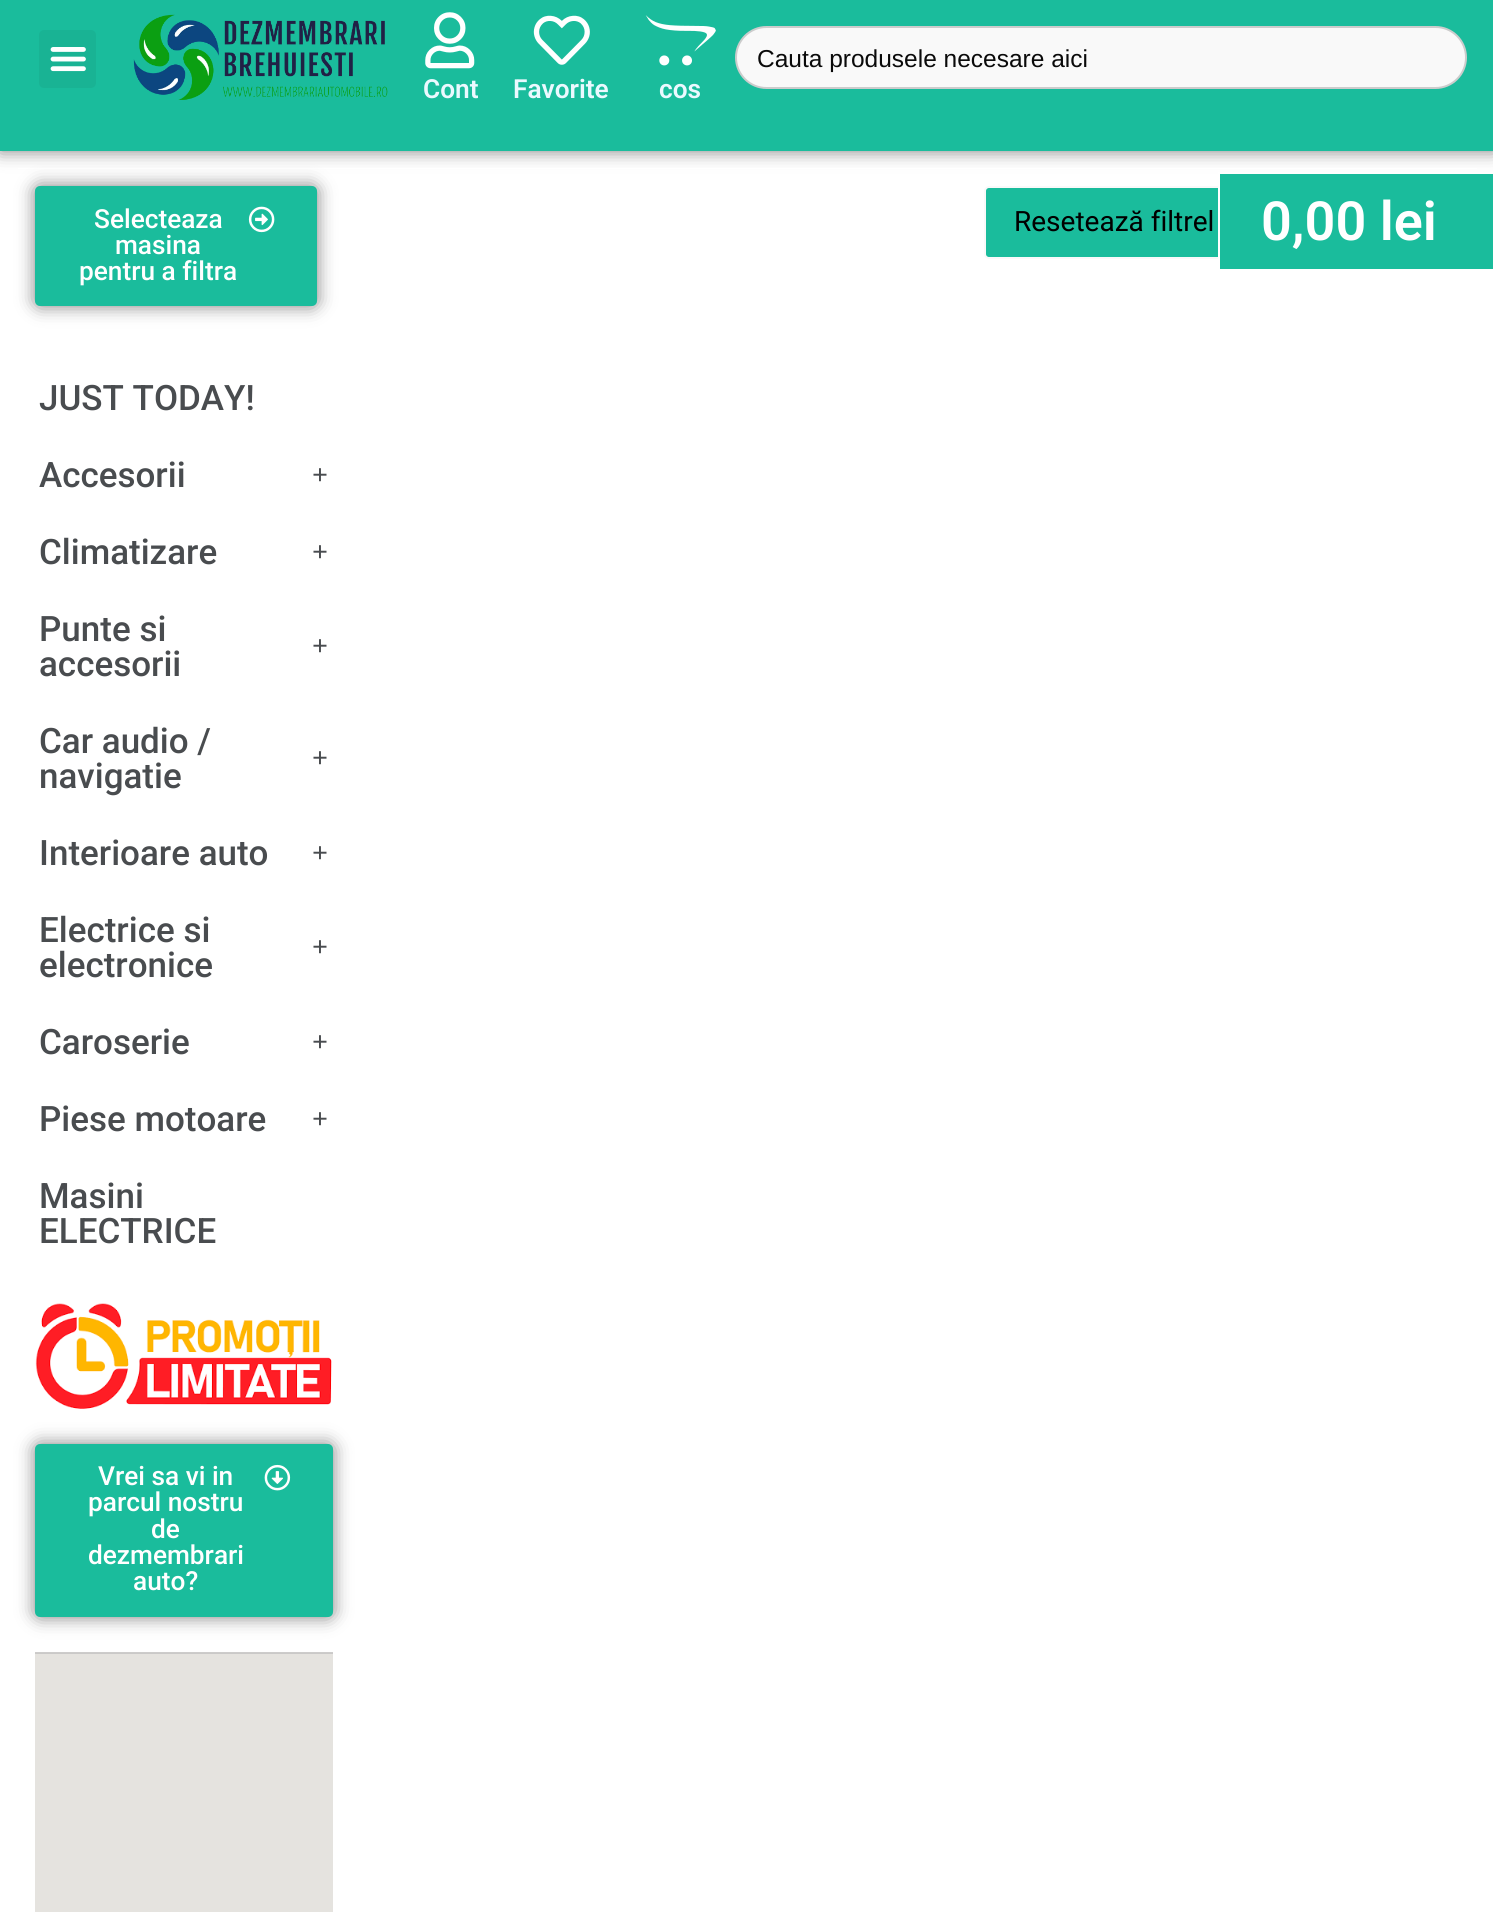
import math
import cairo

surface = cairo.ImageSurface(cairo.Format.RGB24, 1493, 1912)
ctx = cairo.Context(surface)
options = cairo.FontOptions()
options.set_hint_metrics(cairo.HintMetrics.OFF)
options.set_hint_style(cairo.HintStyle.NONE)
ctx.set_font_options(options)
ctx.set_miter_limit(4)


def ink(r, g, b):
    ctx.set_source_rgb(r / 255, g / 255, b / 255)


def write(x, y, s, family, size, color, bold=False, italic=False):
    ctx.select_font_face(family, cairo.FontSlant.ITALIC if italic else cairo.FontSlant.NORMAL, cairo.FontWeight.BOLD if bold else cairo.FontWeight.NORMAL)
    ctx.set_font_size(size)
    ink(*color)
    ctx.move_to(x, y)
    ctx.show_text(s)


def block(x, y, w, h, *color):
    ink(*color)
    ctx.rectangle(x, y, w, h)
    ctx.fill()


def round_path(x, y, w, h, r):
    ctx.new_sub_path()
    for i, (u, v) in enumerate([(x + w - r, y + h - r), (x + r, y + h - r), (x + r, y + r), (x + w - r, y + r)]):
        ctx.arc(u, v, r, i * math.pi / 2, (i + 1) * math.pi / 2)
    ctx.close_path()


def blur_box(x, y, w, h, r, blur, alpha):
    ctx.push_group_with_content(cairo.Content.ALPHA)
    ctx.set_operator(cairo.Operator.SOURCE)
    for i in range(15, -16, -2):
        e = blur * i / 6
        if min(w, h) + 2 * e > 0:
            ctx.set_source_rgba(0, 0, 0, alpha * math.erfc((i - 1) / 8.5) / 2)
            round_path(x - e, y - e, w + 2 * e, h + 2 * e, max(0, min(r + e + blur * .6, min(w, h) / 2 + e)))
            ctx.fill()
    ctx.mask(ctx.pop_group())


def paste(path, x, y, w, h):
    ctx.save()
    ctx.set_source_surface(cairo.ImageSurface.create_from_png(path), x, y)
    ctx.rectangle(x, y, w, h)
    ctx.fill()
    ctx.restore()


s1 = dict(family="Liberation Sans", size=24.5, color=(10, 10, 10))
s2 = dict(family="Roboto SemiBold", size=26.25, color=(235, 249, 255))
s3 = dict(family="Roboto Medium", size=26.25, color=(255, 255, 255))
s4 = dict(family="Roboto", size=28, color=(0, 0, 0))
s5 = dict(family="Roboto SemiBold", size=54, color=(255, 255, 255))
s6 = dict(family="Roboto Medium", size=35, color=(73, 76, 79))
s7 = dict(family="Liberation Serif", size=28, color=(73, 76, 79), bold=True)

ink(255, 255, 255)
ctx.paint()
ink(0, 0, 0)
blur_box(0, 0, 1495, 151, 0, 9, 0.5)
block(0, 0, 1493, 151, 26, 188, 156)
ink(25, 179, 148)
round_path(39, 30, 57, 58, 5)
ctx.fill()
paste("pic1.png", 50, 47, 36, 25)
paste("pic2.png", 133, 14, 255, 86)
ink(249, 249, 249)
round_path(736, 27, 730, 61, 30.5)
ctx.fill_preserve()
ink(204, 204, 204)
ctx.stroke()
write(757, 67, "Cauta produsele necesare aici", **s1)
paste("pic3.png", 425, 12, 50, 57)
write(423, 98, "Cont", **s2)
paste("pic4.png", 533, 15, 57, 50)
write(513, 98, "Favorite", **s2)
paste("pic5.png", 645, 15, 71, 51)
write(659, 98, "cos", **s2)
block(18, 168, 1459, 1, 255, 255, 255)
ink(0, 0, 0)
blur_box(35, 186, 282, 120, 5, 9, 0.5)
ink(26, 188, 156)
round_path(35, 186, 282, 120, 5)
ctx.fill()
write(94, 228, "Selecteaza", **s3)
write(115, 254, "masina", **s3)
write(79, 280, "pentru a filtra", **s3)
paste("pic6.png", 248, 206, 27, 27)
ink(26, 188, 156)
round_path(985, 187, 272, 71, 4)
ctx.fill_preserve()
ink(249, 249, 249)
ctx.stroke()
write(1014, 231, "Resetează filtrel", **s4)
ink(26, 188, 156)
ctx.rectangle(1219, 173, 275, 97)
ctx.fill_preserve()
ink(255, 255, 255)
ctx.stroke()
write(1261, 240, "0,00 lei", **s5)
write(39, 410, "JUST TODAY!", **s6)
write(39, 487, "Accesorii", **s6)
write(312, 484, "+", **s7)
write(39, 564, "Climatizare", **s6)
write(312, 561, "+", **s7)
write(39, 641, "Punte si", **s6)
write(312, 655, "+", **s7)
write(39, 676, "accesorii", **s6)
write(39, 753, "Car audio /", **s6)
write(312, 767, "+", **s7)
write(39, 788, "navigatie", **s6)
write(39, 865, "Interioare auto", **s6)
write(312, 862, "+", **s7)
write(39, 942, "Electrice si", **s6)
write(312, 956, "+", **s7)
write(39, 977, "electronice", **s6)
write(39, 1054, "Caroserie", **s6)
write(312, 1051, "+", **s7)
write(39, 1131, "Piese motoare", **s6)
write(312, 1128, "+", **s7)
write(39, 1208, "Masini", **s6)
write(39, 1243, "ELECTRICE", **s6)
paste("pic7.png", 35, 1303, 297, 106)
ink(0, 0, 0)
blur_box(35, 1444, 298, 173, 5, 9, 0.5)
ink(26, 188, 156)
round_path(35, 1444, 298, 173, 5)
ctx.fill()
write(98, 1485, "Vrei sa vi in", **s3)
write(88, 1511, "parcul nostru", **s3)
write(151, 1538, "de", **s3)
write(88, 1564, "dezmembrari", **s3)
write(133, 1590, "auto?", **s3)
paste("pic8.png", 264, 1464, 27, 27)
paste("pic9.png", 35, 1652, 298, 260)
surface.write_to_png("screenshot.png")
